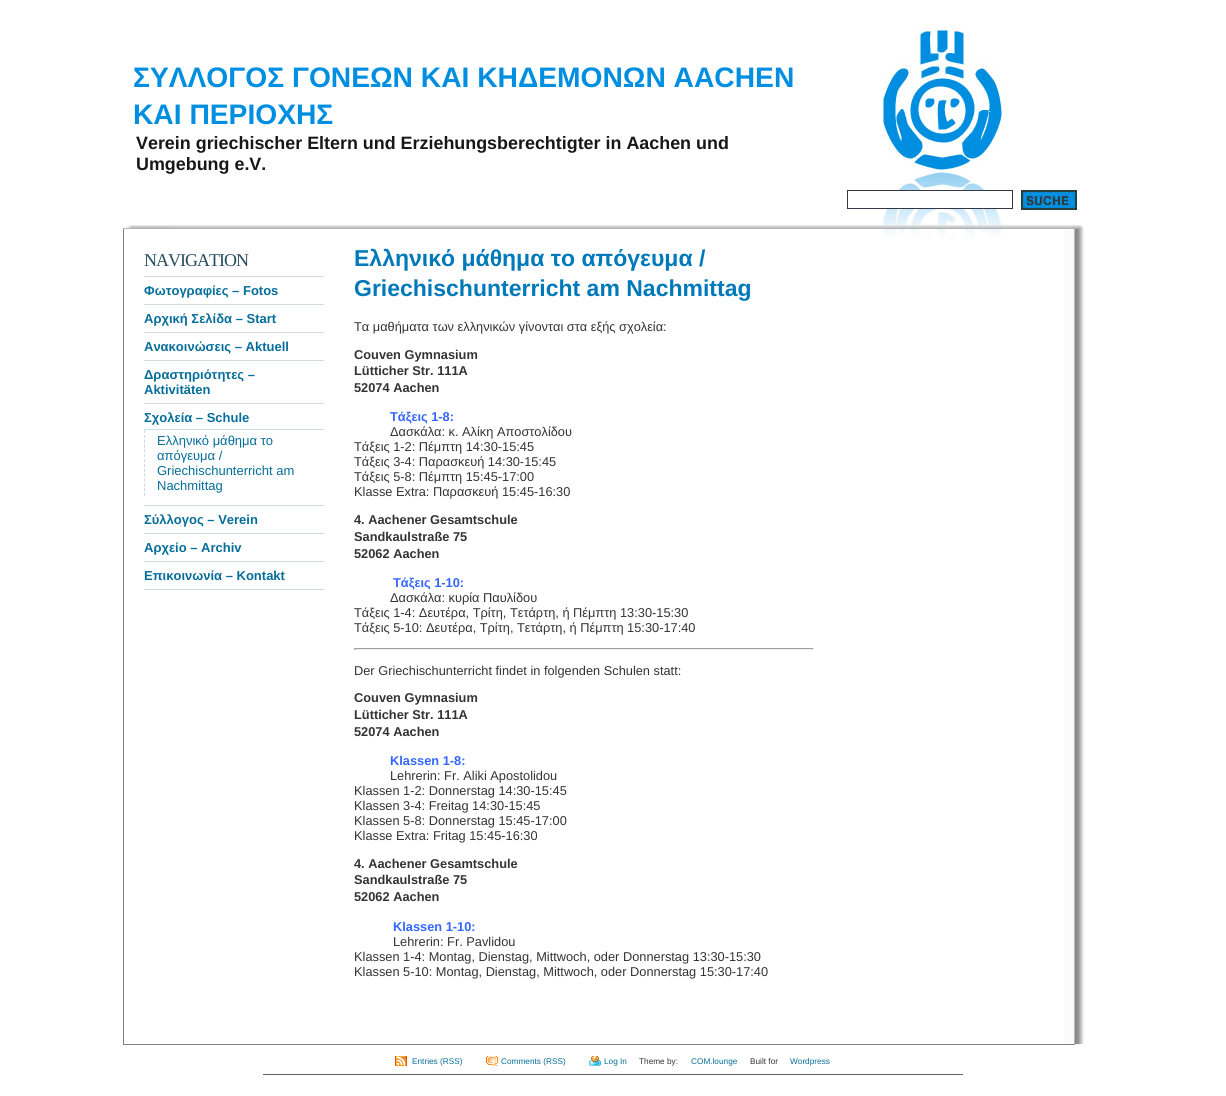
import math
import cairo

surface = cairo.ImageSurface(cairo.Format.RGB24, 1226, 1096)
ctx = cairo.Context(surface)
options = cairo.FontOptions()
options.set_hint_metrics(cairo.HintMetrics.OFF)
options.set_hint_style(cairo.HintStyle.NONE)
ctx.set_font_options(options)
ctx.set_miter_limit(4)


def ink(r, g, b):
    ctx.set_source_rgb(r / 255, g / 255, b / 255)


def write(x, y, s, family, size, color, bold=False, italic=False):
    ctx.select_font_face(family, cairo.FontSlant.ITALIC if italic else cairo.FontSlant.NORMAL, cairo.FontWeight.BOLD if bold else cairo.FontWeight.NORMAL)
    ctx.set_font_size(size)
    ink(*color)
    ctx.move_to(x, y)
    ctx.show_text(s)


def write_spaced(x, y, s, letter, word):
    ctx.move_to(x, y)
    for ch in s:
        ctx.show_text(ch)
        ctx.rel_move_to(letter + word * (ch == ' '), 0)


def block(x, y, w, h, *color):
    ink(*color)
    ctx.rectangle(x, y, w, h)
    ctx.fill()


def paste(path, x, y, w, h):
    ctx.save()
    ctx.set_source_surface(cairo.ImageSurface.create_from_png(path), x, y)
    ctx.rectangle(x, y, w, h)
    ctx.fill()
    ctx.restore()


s1 = dict(family="Liberation Sans", size=28.2, color=(0, 143, 224), bold=True)
s2 = dict(family="Liberation Sans", size=17.9, color=(23, 23, 23), bold=True)
s3 = dict(family="Liberation Sans", size=13, color=(5, 109, 154), bold=True)
s4 = dict(family="Liberation Sans", size=13, color=(5, 109, 154))
s5 = dict(family="Liberation Sans", size=23, color=(0, 121, 187), bold=True)
s6 = dict(family="Liberation Sans", size=12.8, color=(51, 51, 51))
s7 = dict(family="Liberation Sans", size=12.8, color=(51, 51, 51), bold=True)
s8 = dict(family="Liberation Sans", size=12.8, color=(51, 102, 255), bold=True)
s9 = dict(family="Liberation Sans", size=8.25, color=(5, 109, 154))
s10 = dict(family="Liberation Sans", size=8.25, color=(51, 51, 51))

ink(255, 255, 255)
ctx.paint()
paste("pic1.png", 883, 30, 119, 208)
write(133, 87, "ΣΥΛΛΟΓΟΣ ΓΟΝΕΩΝ ΚΑΙ ΚΗΔΕΜΟΝΩΝ AACHEN", **s1)
write(133, 124, "ΚΑΙ ΠΕΡΙΟΧΗΣ", **s1)
write(136, 149, "Verein griechischer Eltern und Erziehungsberechtigter in Aachen und", **s2)
write(136, 170, "Umgebung e.V.", **s2)
block(883, 191, 116, 17, 255, 255, 255)
ctx.rectangle(847.5, 190.5, 165, 18)
ink(52, 54, 69)
ctx.set_line_width(1)
ctx.stroke()
paste("pic2.png", 1021, 190, 56, 20)
paste("pic3.png", 123, 225, 960, 4)
paste("pic4.png", 1064, 229, 20, 815)
block(123, 229, 1, 815, 128, 128, 128)
ctx.select_font_face("Liberation Serif")
ctx.set_font_size(18)
ink(36, 76, 93)
write_spaced(144, 266, "NAVIGATION", -1, 0)
block(144, 276, 180, 1, 206, 221, 228)
block(144, 304, 180, 1, 206, 218, 224)
write(144, 295, "Φωτογραφίες – Fotos", **s3)
block(144, 332, 180, 1, 206, 218, 224)
write(144, 323, "Αρχική Σελίδα – Start", **s3)
block(144, 360, 180, 1, 206, 218, 224)
write(144, 351, "Ανακοινώσεις – Aktuell", **s3)
block(144, 403, 180, 1, 206, 218, 224)
write(144, 379, "Δραστηριότητες –", **s3)
write(144, 394, "Aktivitäten", **s3)
block(144, 505, 180, 1, 206, 218, 224)
write(144, 422, "Σχολεία – Schule", **s3)
block(144, 429, 180, 1, 206, 221, 228)
ctx.new_path()
ctx.move_to(144.5, 430)
ctx.line_to(144.5, 496)
ink(206, 218, 224)
ctx.set_dash([3, 1.85])
ctx.stroke()
write(157, 445, "Ελληνικό μάθημα το", **s4)
write(157, 460, "απόγευμα /", **s4)
write(157, 475, "Griechischunterricht am", **s4)
write(157, 490, "Nachmittag", **s4)
block(144, 533, 180, 1, 206, 218, 224)
write(144, 524, "Σύλλογος – Verein", **s3)
block(144, 561, 180, 1, 206, 218, 224)
write(144, 552, "Αρχείο – Archiv", **s3)
block(144, 589, 180, 1, 206, 218, 224)
write(144, 580, "Επικοινωνία – Kontakt", **s3)
write(354, 266, "Ελληνικό μάθημα το απόγευμα /", **s5)
write(354, 296, "Griechischunterricht am Nachmittag", **s5)
write(354, 331, "Tα μαθήματα των ελληνικών γίνονται στα εξής σχολεία:", **s6)
write(354, 359, "Couven Gymnasium", **s7)
write(354, 375, "Lütticher Str. 111A", **s7)
write(354, 392, "52074 Aachen", **s7)
write(390, 421, "Τάξεις 1-8:", **s8)
write(390, 436, "Δασκάλα: κ. Αλίκη Αποστολίδου", **s6)
write(354, 451, "Τάξεις 1-2: Πέμπτη 14:30-15:45", **s6)
write(354, 466, "Τάξεις 3-4: Παρασκευή 14:30-15:45", **s6)
write(354, 481, "Τάξεις 5-8: Πέμπτη 15:45-17:00", **s6)
write(354, 496, "Klasse Extra: Παρασκευή 15:45-16:30", **s6)
write(354, 524, "4. Aachener Gesamtschule", **s7)
write(354, 541, "Sandkaulstraße 75", **s7)
write(354, 558, "52062 Aachen", **s7)
write(393, 587, "Τάξεις 1-10:", **s8)
write(390, 602, "Δασκάλα: κυρία Παυλίδου", **s6)
write(354, 617, "Τάξεις 1-4: Δευτέρα, Τρίτη, Τετάρτη, ή Πέμπτη 13:30-15:30", **s6)
write(354, 632, "Τάξεις 5-10: Δευτέρα, Τρίτη, Τετάρτη, ή Πέμπτη 15:30-17:40", **s6)
block(354, 648, 460, 1, 159, 159, 159)
block(813, 648, 1, 2, 238, 238, 238)
block(354, 649, 460, 1, 238, 238, 238)
block(354, 648, 1, 2, 159, 159, 159)
write(354, 675, "Der Griechischunterricht findet in folgenden Schulen statt:", **s6)
write(354, 702, "Couven Gymnasium", **s7)
write(354, 719, "Lütticher Str. 111A", **s7)
write(354, 736, "52074 Aachen", **s7)
write(390, 765, "Klassen 1-8:", **s8)
write(390, 780, "Lehrerin: Fr. Aliki Apostolidou", **s6)
write(354, 795, "Klassen 1-2: Donnerstag 14:30-15:45", **s6)
write(354, 810, "Klassen 3-4: Freitag 14:30-15:45", **s6)
write(354, 825, "Klassen 5-8: Donnerstag 15:45-17:00", **s6)
write(354, 840, "Klasse Extra: Fritag 15:45-16:30", **s6)
write(354, 868, "4. Aachener Gesamtschule", **s7)
write(354, 884, "Sandkaulstraße 75", **s7)
write(354, 901, "52062 Aachen", **s7)
write(393, 931, "Klassen 1-10:", **s8)
write(393, 946, "Lehrerin: Fr. Pavlidou", **s6)
write(354, 961, "Klassen 1-4: Montag, Dienstag, Mittwoch, oder Donnerstag 13:30-15:30", **s6)
write(354, 976, "Klassen 5-10: Montag, Dienstag, Mittwoch, oder Donnerstag 15:30-17:40", **s6)
block(123, 1044, 952, 1, 128, 128, 128)
block(263, 1074, 700, 1, 98, 98, 98)
paste("pic5.png", 395, 1056, 12, 10)
write(412, 1064, "Entries (RSS)", **s9)
paste("pic6.png", 486, 1056, 12, 10)
write(501, 1064, "Comments (RSS)", **s9)
paste("pic7.png", 589, 1056, 12, 10)
write(604, 1064, "Log In", **s9)
write(639, 1064, "Theme by:", **s10)
write(691, 1064, "COM.lounge", **s9)
write(750, 1064, "Built for", **s10)
write(790, 1064, "Wordpress", **s9)
surface.write_to_png("screenshot.png")
